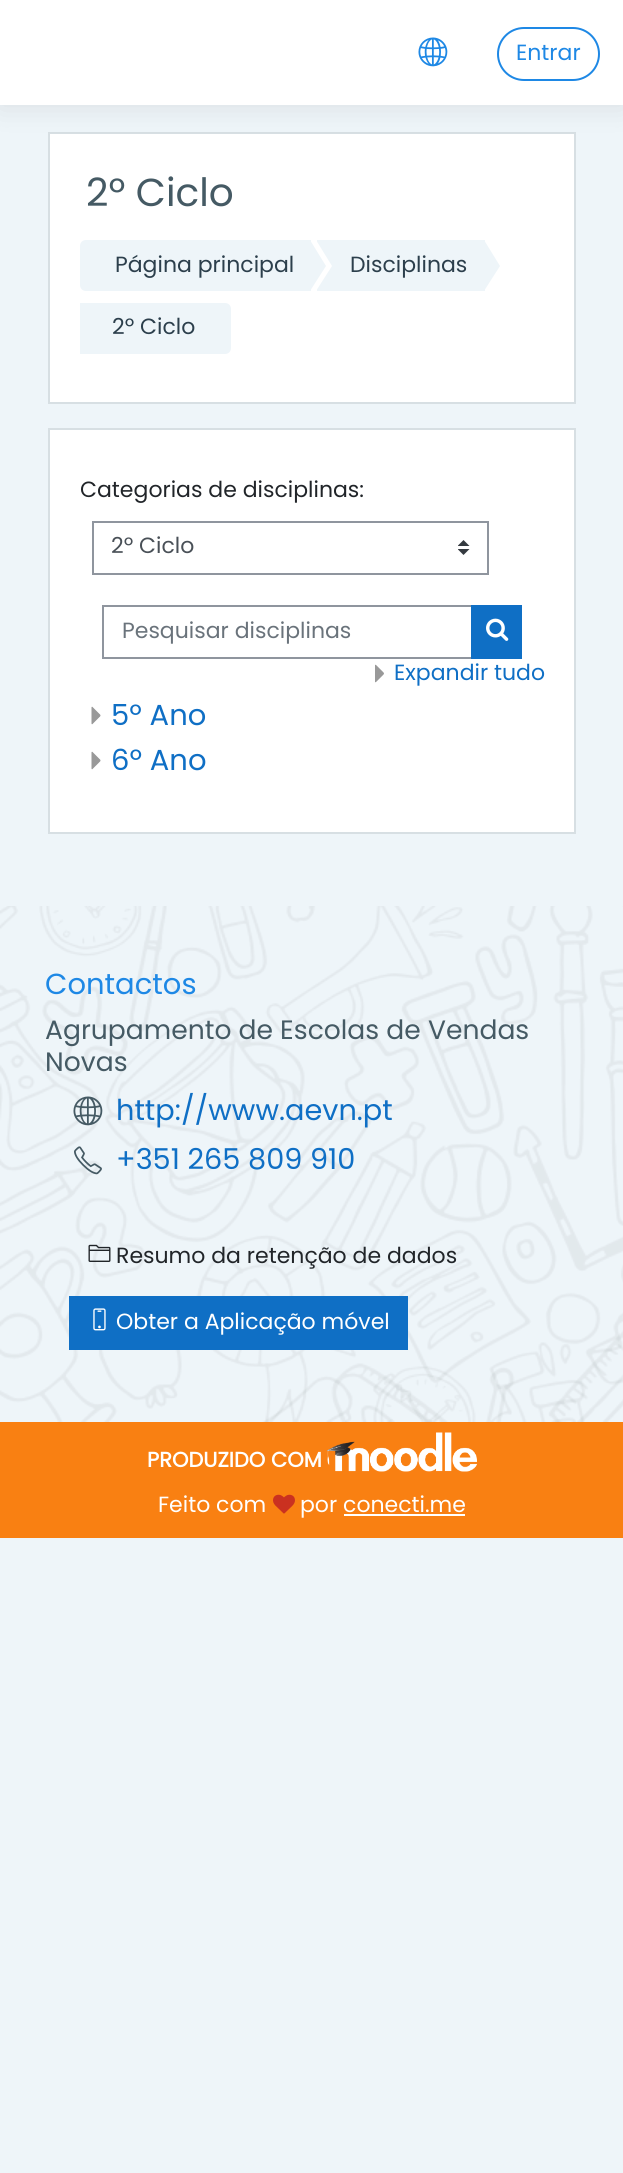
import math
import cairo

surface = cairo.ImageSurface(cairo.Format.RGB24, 623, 2173)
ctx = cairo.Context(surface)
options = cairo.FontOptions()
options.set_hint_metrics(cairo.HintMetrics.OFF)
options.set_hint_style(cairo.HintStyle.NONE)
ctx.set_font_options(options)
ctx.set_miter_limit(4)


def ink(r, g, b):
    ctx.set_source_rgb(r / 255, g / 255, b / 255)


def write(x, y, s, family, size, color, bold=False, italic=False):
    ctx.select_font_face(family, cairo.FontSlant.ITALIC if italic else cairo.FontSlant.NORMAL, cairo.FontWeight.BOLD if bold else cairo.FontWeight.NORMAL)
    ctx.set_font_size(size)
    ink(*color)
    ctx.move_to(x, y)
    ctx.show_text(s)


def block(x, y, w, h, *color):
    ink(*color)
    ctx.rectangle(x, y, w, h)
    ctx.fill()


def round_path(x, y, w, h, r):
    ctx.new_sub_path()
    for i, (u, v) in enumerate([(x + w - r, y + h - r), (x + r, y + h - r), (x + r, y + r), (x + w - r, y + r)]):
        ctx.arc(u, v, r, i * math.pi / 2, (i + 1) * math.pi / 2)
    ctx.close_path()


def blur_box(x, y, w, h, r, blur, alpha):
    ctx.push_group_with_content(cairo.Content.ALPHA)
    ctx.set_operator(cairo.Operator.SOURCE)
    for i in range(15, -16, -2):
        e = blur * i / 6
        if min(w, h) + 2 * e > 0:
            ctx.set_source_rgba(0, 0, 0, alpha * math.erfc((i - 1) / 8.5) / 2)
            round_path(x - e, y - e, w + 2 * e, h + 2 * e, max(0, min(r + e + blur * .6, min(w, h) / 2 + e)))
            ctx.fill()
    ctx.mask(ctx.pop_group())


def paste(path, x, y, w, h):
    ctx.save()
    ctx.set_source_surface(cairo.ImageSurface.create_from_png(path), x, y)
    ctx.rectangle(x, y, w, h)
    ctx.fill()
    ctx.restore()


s1 = dict(family="Poppins", size=22, color=(30, 136, 229))
s2 = dict(family="Poppins", size=39, color=(69, 90, 100))
s3 = dict(family="Poppins", size=22, color=(44, 63, 76))
s4 = dict(family="Poppins", size=22, color=(33, 37, 41))
s5 = dict(family="Poppins", size=22, color=(73, 80, 87))
s6 = dict(family="Poppins", size=22, color=(106, 115, 123))
s7 = dict(family="Poppins", size=22, color=(15, 111, 197))
s8 = dict(family="Poppins", size=29, color=(15, 111, 197))
s9 = dict(family="Poppins", size=29, color=(30, 136, 229))
s10 = dict(family="Poppins", size=26.6, color=(69, 90, 100))
s11 = dict(family="Poppins", size=28.75, color=(15, 111, 197))
s12 = dict(family="Poppins", size=22, color=(255, 255, 255))
s13 = dict(family="Poppins", size=21, color=(255, 255, 255), bold=True)

ink(238, 245, 249)
ctx.paint()
ink(255, 255, 255)
ctx.rectangle(49, 133, 526, 270)
ctx.fill_preserve()
ink(215, 223, 227)
ctx.stroke()
ink(0, 0, 0)
blur_box(0, 0, 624, 105, 0, 15, 0.1)
block(0, 0, 623, 105, 255, 255, 255)
paste("pic1.png", 418, 37, 30, 30)
round_path(498, 28, 101, 52, 26)
ink(30, 136, 229)
ctx.stroke()
write(516, 60, "Entrar", **s1)
write(86, 206, "2º Ciclo", **s2)
ink(238, 245, 249)
ctx.new_path()
ctx.move_to(86, 240)
ctx.line_to(311, 240)
ctx.line_to(311, 291)
ctx.line_to(86, 291)
ctx.curve_to(82.5, 291, 80, 288.5, 80, 285)
ctx.line_to(80, 246)
ctx.curve_to(80, 242.5, 82.5, 240, 86, 240)
ctx.close_path()
ctx.fill()
write(115, 272, "Página principal", **s3)
block(317, 240, 168, 51, 238, 245, 249)
ink(255, 255, 255)
ctx.new_path()
ctx.move_to(316, 291)
ctx.line_to(316, 240)
ctx.line_to(332, 266)
ctx.close_path()
ctx.fill()
ink(238, 245, 249)
ctx.new_path()
ctx.move_to(310, 291)
ctx.line_to(310, 240)
ctx.line_to(326, 266)
ctx.close_path()
ctx.fill()
write(350, 272, "Disciplinas", **s3)
ink(238, 245, 249)
ctx.new_path()
ctx.move_to(484, 291)
ctx.line_to(484, 240)
ctx.line_to(500, 266)
ctx.close_path()
ctx.fill()
ctx.new_path()
ctx.move_to(80, 303)
ctx.line_to(225, 303)
ctx.curve_to(228.5, 303, 231, 305.5, 231, 309)
ctx.line_to(231, 348)
ctx.curve_to(231, 351.5, 228.5, 354, 225, 354)
ctx.line_to(80, 354)
ctx.close_path()
ctx.fill()
write(112, 334, "2º Ciclo", **s3)
ink(255, 255, 255)
ctx.rectangle(49, 429, 526, 404)
ctx.fill_preserve()
ink(215, 223, 227)
ctx.stroke()
write(80, 497, "Categorias de disciplinas:", **s4)
paste("pic2.png", 458, 540, 12, 15)
ctx.rectangle(93, 522, 395, 52)
ink(143, 149, 158)
ctx.stroke()
write(111, 553, "2º Ciclo", **s5)
ctx.rectangle(103, 606, 369, 52)
ink(143, 149, 158)
ctx.stroke()
write(122, 638, "Pesquisar disciplinas", **s6)
block(471, 605, 51, 54, 15, 111, 197)
paste("pic3.png", 486, 618, 23, 23)
paste("pic4.png", 375, 664, 9, 19)
write(394, 680, "Expandir tudo", **s7)
paste("pic5.png", 91, 706, 10, 19)
write(111, 725, "5º Ano", **s8)
paste("pic6.png", 91, 751, 10, 19)
write(111, 770, "6º Ano", **s8)
paste("pic7.png", 0, 906, 623, 516)
write(45, 994, "Contactos", **s9)
write(45, 1039, "Agrupamento de Escolas de Vendas", **s10)
write(45, 1071, "Novas", **s10)
paste("pic8.png", 73, 1096, 30, 30)
write(116, 1120, "http://www.aevn.pt", **s11)
paste("pic9.png", 74, 1146, 28, 29)
write(116, 1169, "+351 265 809 910", **s11)
paste("pic10.png", 88, 1244, 23, 18)
write(116, 1263, "Resumo da retenção de dados", **s4)
block(69, 1296, 339, 54, 15, 111, 197)
paste("pic11.png", 93, 1308, 13, 23)
write(116, 1329, "Obter a Aplicação móvel", **s12)
block(0, 1422, 623, 116, 249, 128, 18)
write(147, 1467, "PRODUZIDO COM", **s13)
paste("pic12.png", 327, 1432, 150, 40)
write(158, 1512, "Feito com", **s12)
paste("pic13.png", 273, 1494, 22, 20)
write(300, 1512, "por conecti.me", **s12)
block(344, 1514, 121, 2, 255, 255, 255)
surface.write_to_png("screenshot.png")
